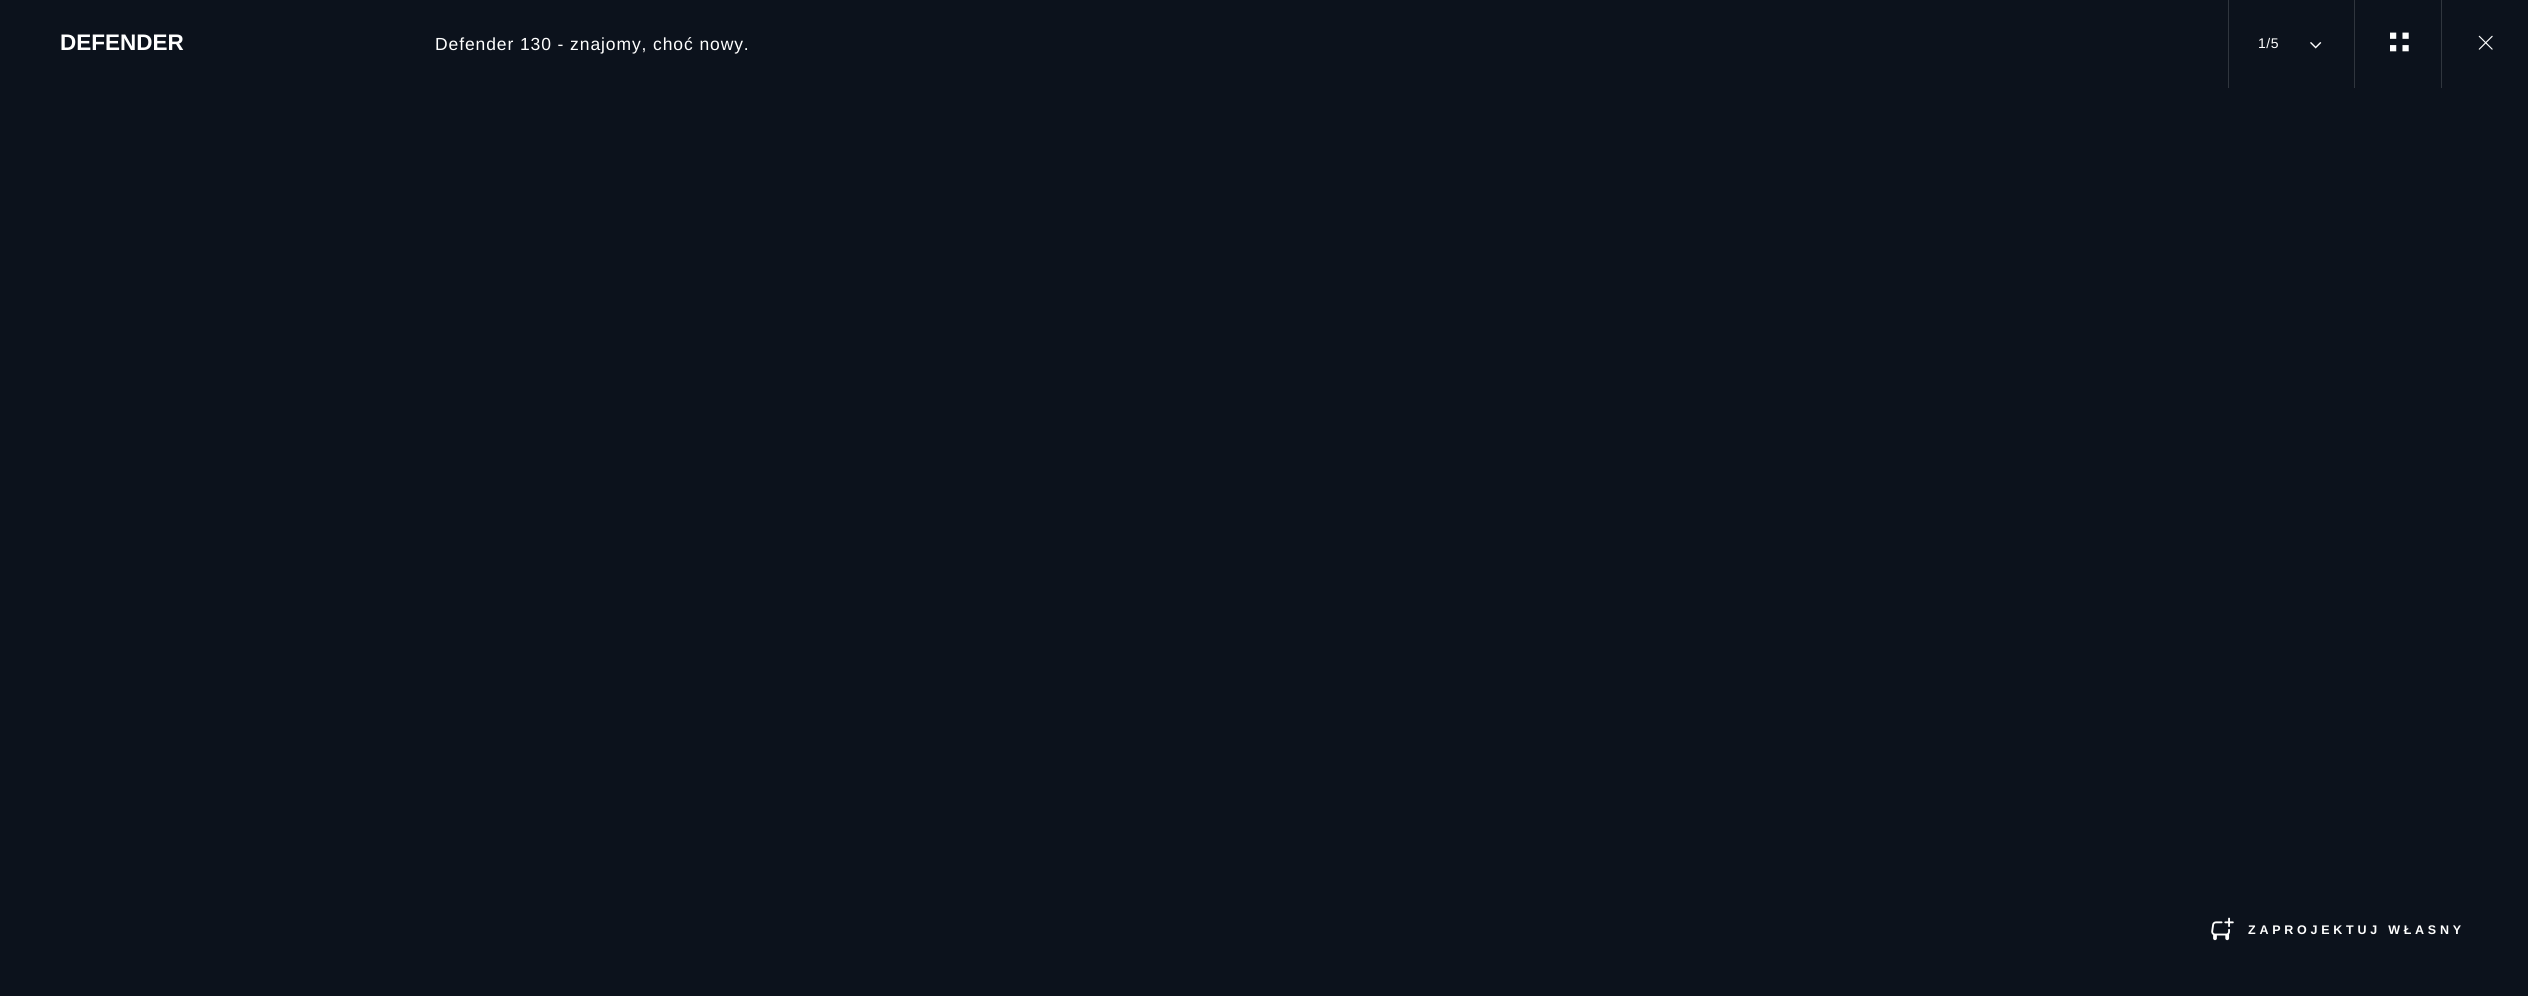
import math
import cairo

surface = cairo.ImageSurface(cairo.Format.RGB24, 2528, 996)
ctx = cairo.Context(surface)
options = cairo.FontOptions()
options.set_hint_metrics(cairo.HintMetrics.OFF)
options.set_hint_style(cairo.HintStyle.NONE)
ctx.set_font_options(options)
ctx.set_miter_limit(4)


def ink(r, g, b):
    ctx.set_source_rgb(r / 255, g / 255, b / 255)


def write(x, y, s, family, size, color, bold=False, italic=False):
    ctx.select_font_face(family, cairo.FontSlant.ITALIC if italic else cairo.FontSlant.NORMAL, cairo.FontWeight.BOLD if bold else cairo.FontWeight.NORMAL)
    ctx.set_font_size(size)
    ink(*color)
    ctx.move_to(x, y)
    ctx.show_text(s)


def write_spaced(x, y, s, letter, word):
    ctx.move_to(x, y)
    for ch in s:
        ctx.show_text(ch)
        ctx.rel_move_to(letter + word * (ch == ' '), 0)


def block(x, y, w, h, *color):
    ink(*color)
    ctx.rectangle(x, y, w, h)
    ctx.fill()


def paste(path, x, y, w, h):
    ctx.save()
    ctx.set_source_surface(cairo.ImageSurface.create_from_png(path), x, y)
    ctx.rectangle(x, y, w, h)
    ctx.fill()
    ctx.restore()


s1 = dict(family="Liberation Sans", size=22.5, color=(255, 255, 255), bold=True)

ink(12, 18, 28)
ctx.paint()
write(60, 50, "DEFENDER", **s1)
ctx.select_font_face("Liberation Sans")
ctx.set_font_size(17.5)
write_spaced(435, 50, "Defender 130 - znajomy, choć nowy.", 0.9, 0)
block(2228, 0, 1, 88, 48, 54, 62)
ctx.set_font_size(14)
ink(255, 255, 255)
write_spaced(2258, 48, "1/5", 0.5, 0)
paste("pic1.png", 2310, 42, 12, 7)
block(2354, 0, 1, 88, 48, 54, 62)
paste("pic2.png", 2390, 32, 19, 20)
block(2441, 0, 1, 88, 48, 54, 62)
paste("pic3.png", 2478, 35, 15, 15)
paste("pic4.png", 2211, 917, 23, 24)
ctx.select_font_face("Liberation Sans", cairo.FontSlant.NORMAL, cairo.FontWeight.BOLD)
ctx.set_font_size(12.5)
ink(255, 255, 255)
write_spaced(2248, 934, "ZAPROJEKTUJ WŁASNY", 3.75, 0)
surface.write_to_png("screenshot.png")
